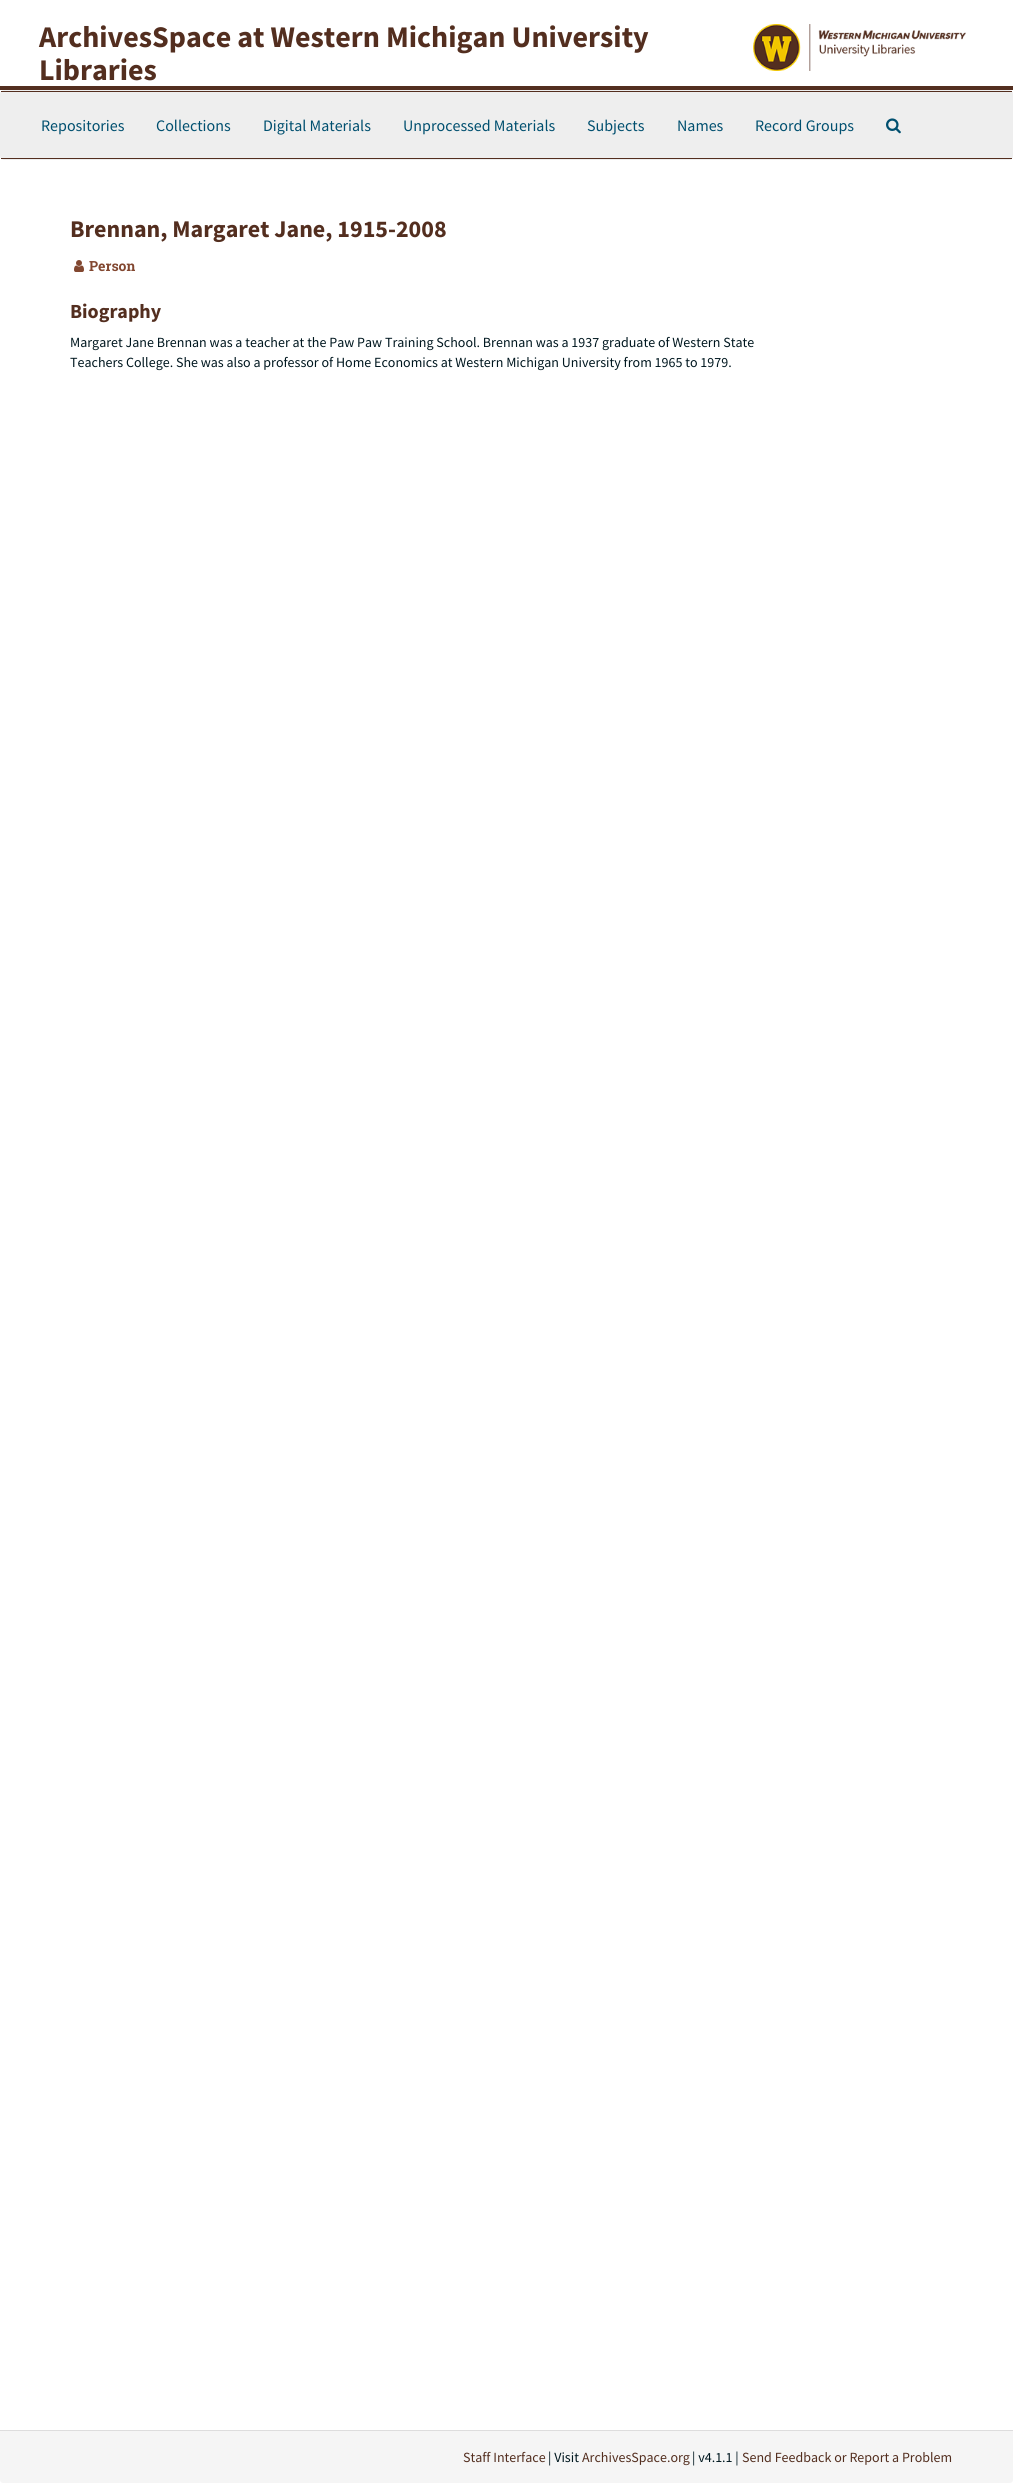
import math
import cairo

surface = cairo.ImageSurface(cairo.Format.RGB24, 1013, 2483)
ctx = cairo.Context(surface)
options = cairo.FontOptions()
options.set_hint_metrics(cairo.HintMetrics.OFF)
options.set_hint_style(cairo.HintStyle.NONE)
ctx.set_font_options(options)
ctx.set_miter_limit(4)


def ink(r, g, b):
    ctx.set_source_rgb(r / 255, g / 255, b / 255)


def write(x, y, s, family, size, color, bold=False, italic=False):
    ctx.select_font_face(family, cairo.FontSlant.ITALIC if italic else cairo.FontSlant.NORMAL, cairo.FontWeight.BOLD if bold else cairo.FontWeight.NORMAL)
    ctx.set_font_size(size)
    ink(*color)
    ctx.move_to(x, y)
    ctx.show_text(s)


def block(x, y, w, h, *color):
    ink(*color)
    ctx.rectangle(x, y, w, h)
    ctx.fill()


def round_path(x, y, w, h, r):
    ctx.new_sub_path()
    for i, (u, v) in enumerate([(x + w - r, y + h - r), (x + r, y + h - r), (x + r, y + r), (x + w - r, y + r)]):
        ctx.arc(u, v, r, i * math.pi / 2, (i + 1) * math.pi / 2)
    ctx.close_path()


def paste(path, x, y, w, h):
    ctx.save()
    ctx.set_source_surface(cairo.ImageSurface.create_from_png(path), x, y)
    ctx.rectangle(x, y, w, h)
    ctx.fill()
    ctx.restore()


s1 = dict(family="Source Sans Pro", size=30, color=(83, 46, 31), bold=True)
s2 = dict(family="Source Sans Pro", size=16, color=(0, 79, 111))
s3 = dict(family="Source Sans Pro", size=24, color=(83, 46, 31), bold=True)
s4 = dict(family="Roboto Slab", size=14, color=(130, 71, 48), bold=True)
s5 = dict(family="Source Sans Pro", size=20, color=(83, 46, 31), bold=True)
s6 = dict(family="Source Sans Pro", size=14, color=(0, 23, 31))
s7 = dict(family="Source Sans Pro", size=14, color=(83, 46, 31))

ink(255, 255, 255)
ctx.paint()
block(0, 86, 1013, 4, 83, 46, 31)
write(39, 47, "ArchivesSpace at Western Michigan University", **s1)
write(39, 80, "Libraries", **s1)
paste("pic1.png", 753, 24, 213, 47)
round_path(0.5, 90.5, 1012, 69, 3.5)
ink(238, 238, 238)
ctx.set_line_width(1)
ctx.stroke()
block(1, 92, 1011, 66, 238, 238, 238)
block(1, 91, 1011, 1, 83, 46, 31)
block(1, 158, 1011, 1, 83, 46, 31)
write(41, 131, "Repositories", **s2)
write(156, 131, "Collections", **s2)
write(263, 131, "Digital Materials", **s2)
write(403, 131, "Unprocessed Materials", **s2)
write(587, 131, "Subjects", **s2)
write(677, 131, "Names", **s2)
write(755, 131, "Record Groups", **s2)
paste("pic2.png", 886, 118, 15, 16)
write(70, 237, "Brennan, Margaret Jane, 1915-2008", **s3)
paste("pic3.png", 74, 260, 10, 12)
write(89, 271, "Person", **s4)
write(70, 318, "Biography", **s5)
write(70, 347, "Margaret Jane Brennan was a teacher at the Paw Paw Training School. Brennan was a 1937 graduate of Western State", **s6)
write(70, 367, "Teachers College. She was also a professor of Home Economics at Western Michigan University from 1965 to 1979.", **s6)
ink(245, 245, 245)
ctx.new_path()
ctx.move_to(0, 2430)
ctx.line_to(1013, 2430)
ctx.line_to(1013, 2480)
ctx.curve_to(1013, 2481.5, 1011.5, 2483, 1010, 2483)
ctx.line_to(3, 2483)
ctx.curve_to(1.5, 2483, 0, 2481.5, 0, 2480)
ctx.close_path()
ctx.fill()
block(0, 2430, 1013, 1, 221, 221, 221)
write(463, 2462, "Staff Interface", **s7)
write(548, 2462, "| Visit", **s6)
write(582, 2462, "ArchivesSpace.org", **s7)
write(692, 2462, "| v4.1.1 |", **s6)
write(742, 2462, "Send Feedback or Report a Problem", **s7)
surface.write_to_png("screenshot.png")
